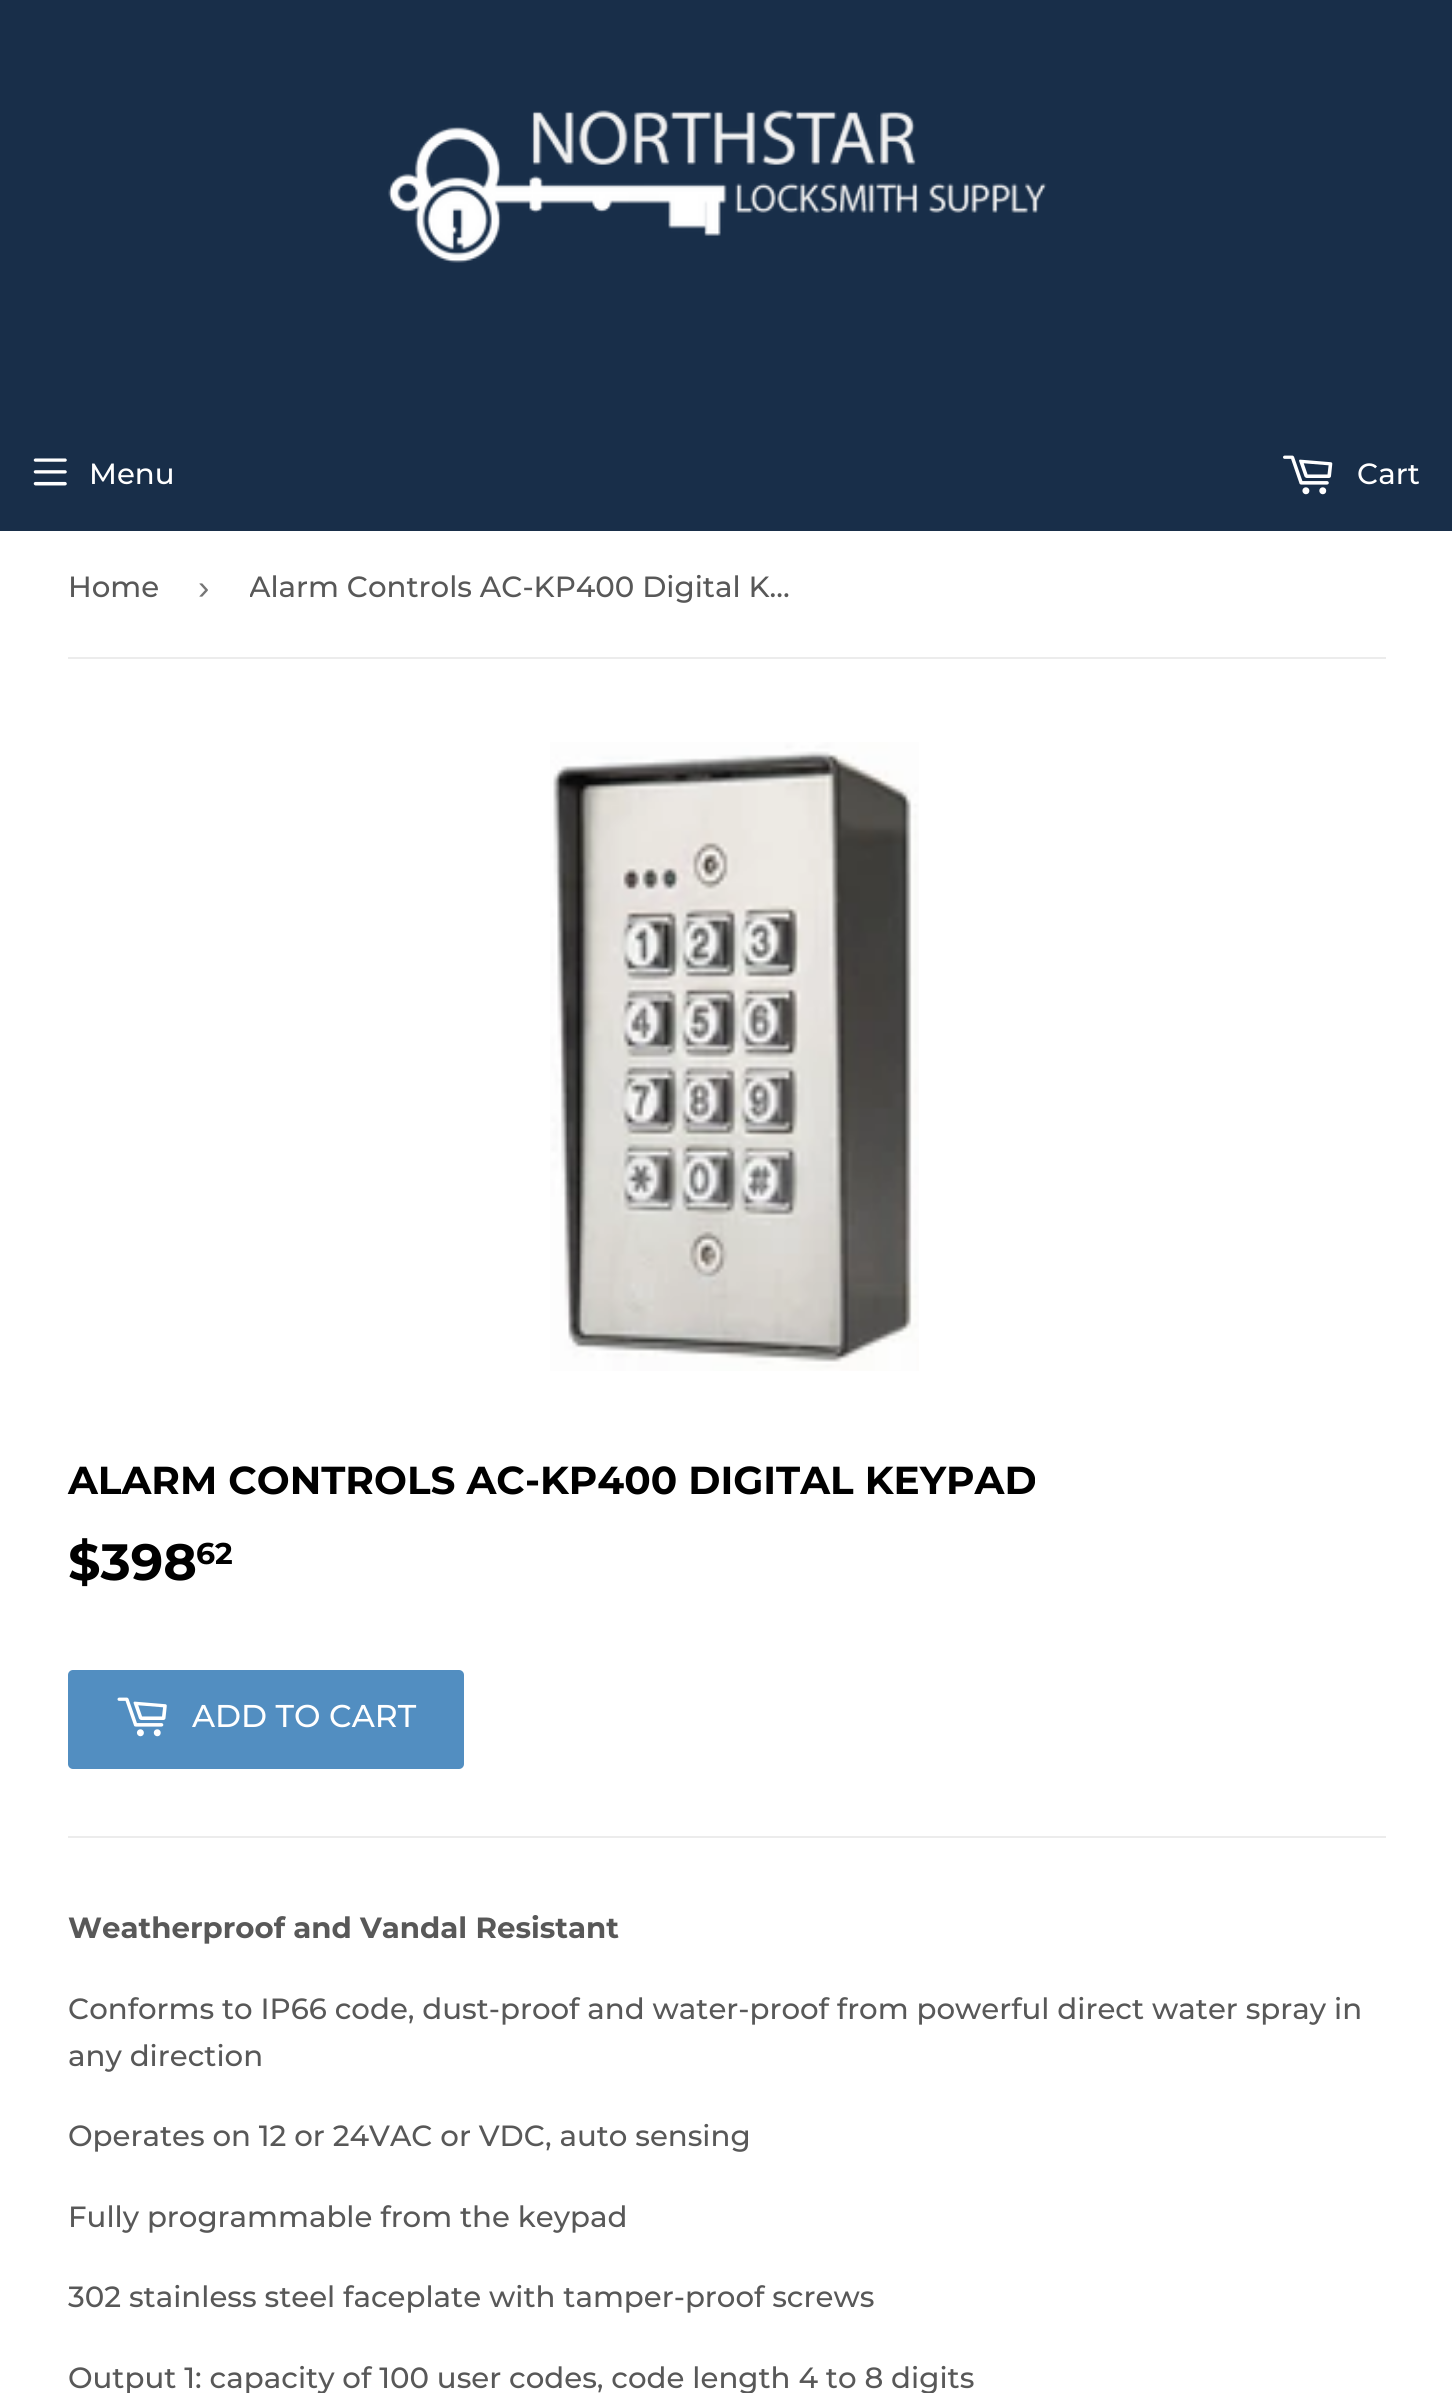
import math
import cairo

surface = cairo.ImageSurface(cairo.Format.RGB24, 1452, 2393)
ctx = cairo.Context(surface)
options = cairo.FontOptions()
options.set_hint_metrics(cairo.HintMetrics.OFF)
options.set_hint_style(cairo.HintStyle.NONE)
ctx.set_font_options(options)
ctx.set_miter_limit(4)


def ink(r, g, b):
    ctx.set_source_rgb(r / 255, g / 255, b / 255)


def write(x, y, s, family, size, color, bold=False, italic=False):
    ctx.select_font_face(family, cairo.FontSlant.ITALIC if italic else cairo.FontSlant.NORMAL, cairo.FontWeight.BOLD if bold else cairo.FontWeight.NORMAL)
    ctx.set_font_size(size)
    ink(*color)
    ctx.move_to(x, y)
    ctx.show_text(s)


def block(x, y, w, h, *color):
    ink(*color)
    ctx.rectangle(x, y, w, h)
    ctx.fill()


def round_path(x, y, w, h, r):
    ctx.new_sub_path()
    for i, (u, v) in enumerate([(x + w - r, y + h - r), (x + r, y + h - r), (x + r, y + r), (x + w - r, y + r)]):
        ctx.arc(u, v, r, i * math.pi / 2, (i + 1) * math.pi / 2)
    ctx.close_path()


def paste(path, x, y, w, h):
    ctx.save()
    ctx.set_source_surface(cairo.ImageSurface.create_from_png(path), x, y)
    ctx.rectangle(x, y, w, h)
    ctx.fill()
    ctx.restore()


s1 = dict(family="Montserrat Medium", size=29.25, color=(255, 255, 255))
s2 = dict(family="Montserrat Medium", size=29.25, color=(88, 88, 88))
s3 = dict(family="Liberation Sans", size=34, color=(118, 118, 118))
s4 = dict(family="Montserrat", size=39, color=(0, 0, 0), bold=True)
s5 = dict(family="Montserrat", size=51, color=(0, 0, 0), bold=True)
s6 = dict(family="Montserrat", size=30, color=(0, 0, 0), bold=True)
s7 = dict(family="Montserrat Medium", size=31.5, color=(255, 255, 255))
s8 = dict(family="Montserrat", size=29.25, color=(88, 88, 88), bold=True)

ink(255, 255, 255)
ctx.paint()
block(0, 0, 1452, 531, 24, 46, 73)
paste("pic1.png", 388, 110, 659, 153)
paste("pic2.png", 33, 458, 34, 28)
write(89, 484, "Menu", **s1)
paste("pic3.png", 1283, 455, 50, 40)
write(1357, 484, "Cart", **s1)
block(68, 657, 1318, 2, 236, 236, 236)
write(68, 597, "Home", **s2)
write(198, 599, "›", **s3)
ctx.save()
ctx.rectangle(250, 531, 562, 113)
ctx.clip()
write(249, 597, "Alarm Controls AC-KP400 Digital K…", **s2)
ctx.restore()
paste("pic4.png", 550, 742, 369, 629)
write(68, 1494, "ALARM CONTROLS AC-KP400 DIGITAL KEYPAD", **s4)
write(68, 1580, "$398", **s5)
write(196, 1564, "62", **s6)
ink(82, 142, 193)
round_path(68, 1670, 396, 99, 5)
ctx.fill()
paste("pic5.png", 117, 1697, 50, 40)
write(192, 1727, "ADD TO CART", **s7)
block(68, 1836, 1318, 2, 236, 236, 236)
write(68, 1938, "Weatherproof and Vandal Resistant", **s8)
write(68, 2019, "Conforms to IP66 code, dust-proof and water-proof from powerful direct water spray in", **s2)
write(68, 2066, "any direction", **s2)
write(68, 2146, "Operates on 12 or 24VAC or VDC, auto sensing", **s2)
write(68, 2227, "Fully programmable from the keypad", **s2)
write(68, 2307, "302 stainless steel faceplate with tamper-proof screws", **s2)
write(68, 2388, "Output 1: capacity of 100 user codes, code length 4 to 8 digits", **s2)
surface.write_to_png("screenshot.png")
